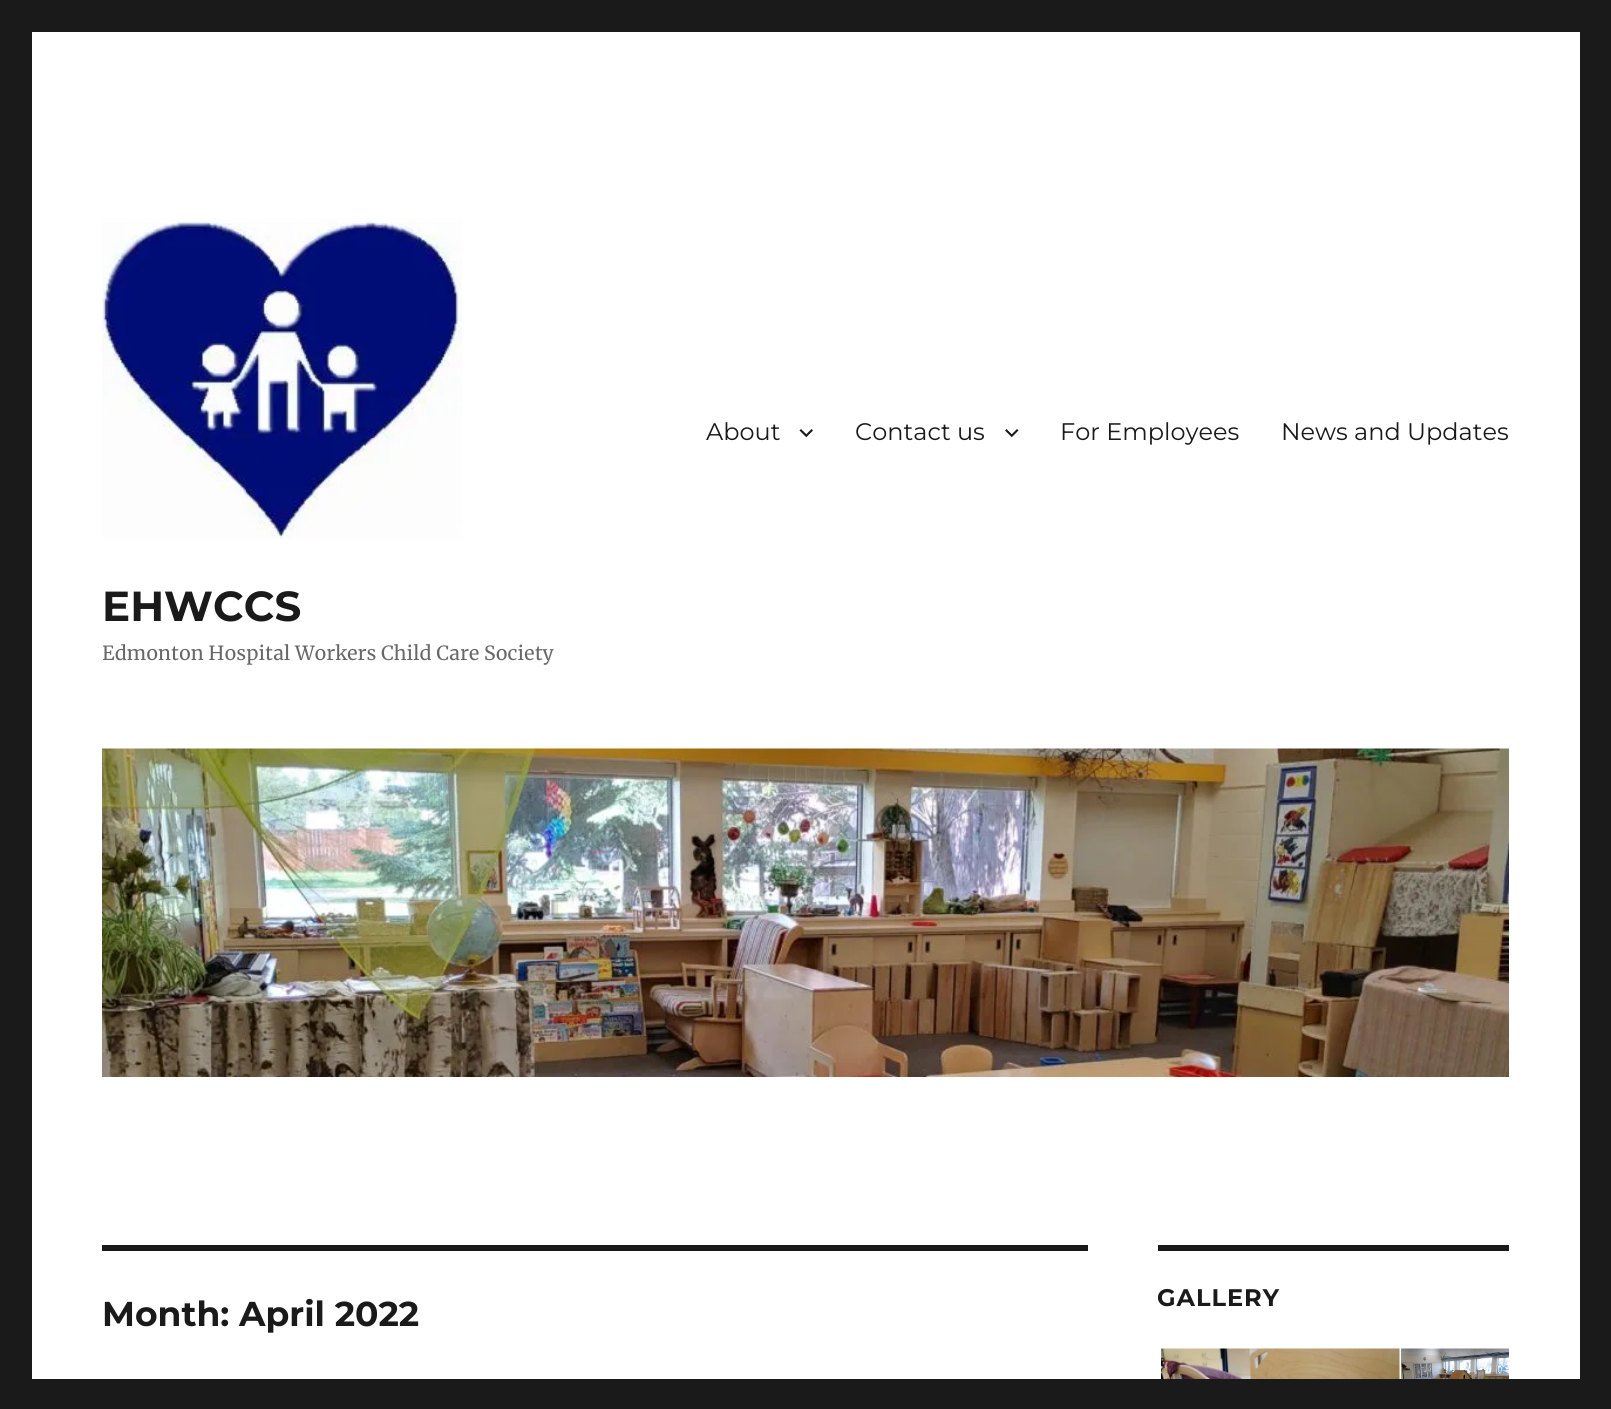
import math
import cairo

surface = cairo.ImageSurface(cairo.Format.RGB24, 1611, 1409)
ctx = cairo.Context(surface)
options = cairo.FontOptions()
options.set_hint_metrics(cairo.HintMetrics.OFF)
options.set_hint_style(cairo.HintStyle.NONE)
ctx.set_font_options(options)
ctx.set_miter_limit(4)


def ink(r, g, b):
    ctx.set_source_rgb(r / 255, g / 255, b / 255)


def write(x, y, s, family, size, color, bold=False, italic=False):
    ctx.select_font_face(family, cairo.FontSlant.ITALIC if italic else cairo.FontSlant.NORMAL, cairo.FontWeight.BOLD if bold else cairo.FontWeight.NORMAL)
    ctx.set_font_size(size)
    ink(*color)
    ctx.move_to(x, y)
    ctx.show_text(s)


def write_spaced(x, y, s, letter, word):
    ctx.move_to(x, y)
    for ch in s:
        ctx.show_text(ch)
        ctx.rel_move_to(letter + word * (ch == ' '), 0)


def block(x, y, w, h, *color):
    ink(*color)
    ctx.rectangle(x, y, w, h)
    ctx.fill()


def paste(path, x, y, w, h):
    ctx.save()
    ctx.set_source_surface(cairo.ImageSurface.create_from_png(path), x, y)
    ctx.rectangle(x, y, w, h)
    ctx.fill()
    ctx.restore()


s1 = dict(family="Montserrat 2 Thin", size=24, color=(26, 26, 26))
s2 = dict(family="Montserrat Thin", size=42, color=(26, 26, 26))
s3 = dict(family="Merriweather", size=19.5, color=(104, 104, 104))
s4 = dict(family="Montserrat Thin", size=34.5, color=(26, 26, 26))

ink(26, 26, 26)
ctx.paint()
block(32, 32, 1548, 1347, 255, 255, 255)
write(706, 440, "About", **s1)
paste("pic1.png", 799, 429, 14, 9)
write(855, 440, "Contact us", **s1)
paste("pic2.png", 1005, 429, 14, 9)
write(1060, 440, "For Employees", **s1)
write(1281, 440, "News and Updates", **s1)
paste("pic3.png", 102, 218, 360, 322)
write(102, 621, "EHWCCS", **s2)
write(102, 660, "Edmonton Hospital Workers Child Care Society", **s3)
paste("pic4.png", 102, 748, 1407, 329)
block(102, 1245, 986, 6, 26, 26, 26)
write(102, 1326, "Month: April 2022", **s4)
block(1158, 1245, 351, 6, 26, 26, 26)
ctx.set_font_size(24)
write_spaced(1157, 1306, "GALLERY", 1, 0)
paste("pic5.png", 1161, 1348, 239, 31)
paste("pic6.png", 1401, 1348, 108, 31)
surface.write_to_png("screenshot.png")
